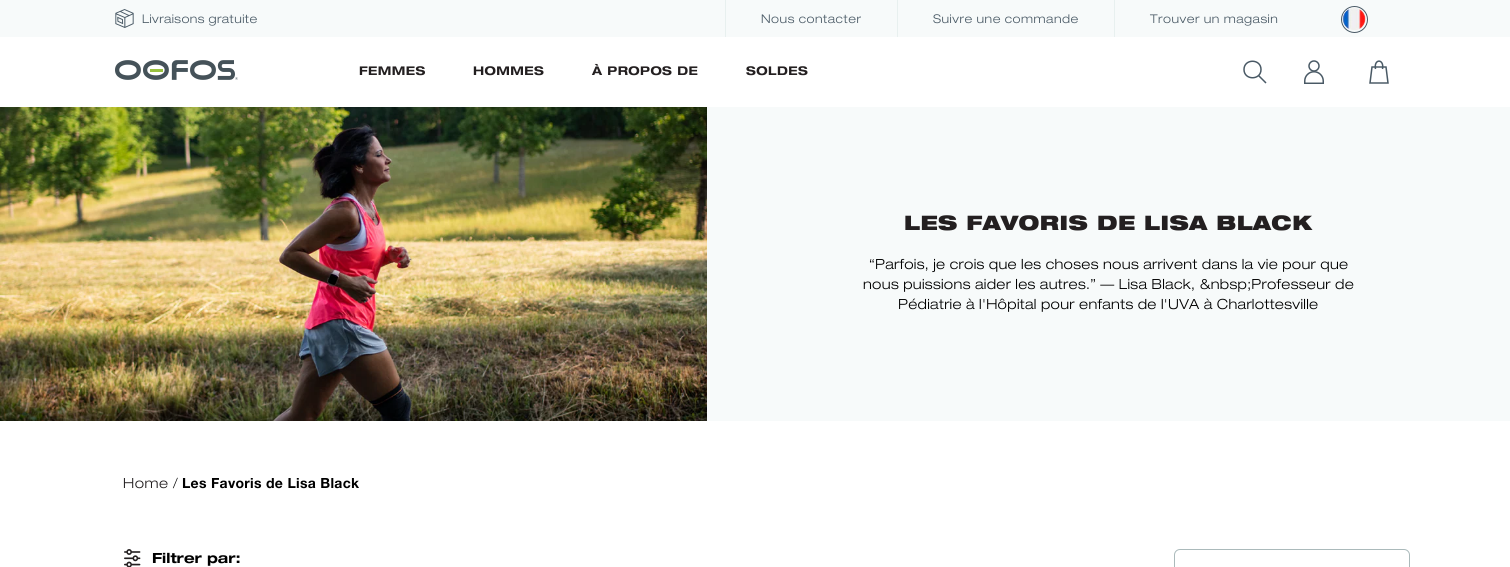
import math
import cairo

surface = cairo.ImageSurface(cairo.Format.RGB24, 1510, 567)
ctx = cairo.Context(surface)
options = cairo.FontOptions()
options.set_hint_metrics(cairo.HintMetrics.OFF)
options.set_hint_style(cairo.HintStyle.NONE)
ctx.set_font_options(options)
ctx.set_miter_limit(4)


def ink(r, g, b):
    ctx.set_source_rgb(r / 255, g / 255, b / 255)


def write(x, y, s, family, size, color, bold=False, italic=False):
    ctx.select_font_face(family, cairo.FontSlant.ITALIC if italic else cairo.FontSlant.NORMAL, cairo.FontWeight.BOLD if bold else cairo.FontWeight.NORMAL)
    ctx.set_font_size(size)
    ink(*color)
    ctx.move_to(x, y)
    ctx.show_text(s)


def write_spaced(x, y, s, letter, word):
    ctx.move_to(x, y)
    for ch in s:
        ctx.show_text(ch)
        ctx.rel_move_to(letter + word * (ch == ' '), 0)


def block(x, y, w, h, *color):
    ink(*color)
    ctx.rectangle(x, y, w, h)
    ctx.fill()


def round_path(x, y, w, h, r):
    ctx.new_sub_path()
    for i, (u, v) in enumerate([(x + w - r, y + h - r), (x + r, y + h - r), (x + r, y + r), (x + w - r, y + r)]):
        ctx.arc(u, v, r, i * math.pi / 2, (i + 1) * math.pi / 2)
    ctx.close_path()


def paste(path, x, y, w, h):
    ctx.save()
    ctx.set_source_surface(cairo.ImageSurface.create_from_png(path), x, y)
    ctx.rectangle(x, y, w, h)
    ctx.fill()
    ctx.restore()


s1 = dict(family="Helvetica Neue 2", size=14, color=(0, 0, 0), bold=True)

ink(255, 255, 255)
ctx.paint()
block(0, 0, 1510, 37, 247, 250, 250)
paste("pic1.png", 115, 9, 19, 19)
ctx.select_font_face("Helvetica Neue Light")
ctx.set_font_size(12)
ink(73, 89, 101)
write_spaced(142, 23, "Livraisons gratuite", 0.4, 0)
block(725, 0, 1, 37, 232, 240, 239)
ink(73, 89, 101)
write_spaced(761, 23, "Nous contacter", 0.5, 0)
block(897, 0, 1, 37, 232, 240, 239)
ink(73, 89, 101)
write_spaced(933, 23, "Suivre une commande", 0.5, 0)
block(1114, 0, 1, 37, 232, 240, 239)
ink(73, 89, 101)
write_spaced(1150, 23, "Trouver un magasin", 0.5, 0)
ctx.new_path()
ctx.arc(1354.5, 19.5, 13, 0, 2 * math.pi)
ctx.set_line_width(1)
ctx.stroke()
paste("pic2.png", 1342, 7, 24, 23)
paste("pic3.png", 115, 60, 123, 20)
ctx.select_font_face("Helvetica Neue 2", cairo.FontSlant.NORMAL, cairo.FontWeight.BOLD)
ink(35, 31, 32)
write_spaced(359, 75, "FEMMES", 0.4, 0)
write_spaced(473, 75, "HOMMES", 0.4, 0)
write_spaced(592, 75, "À PROPOS DE", 0.4, 0)
write_spaced(746, 75, "SOLDES", 0.4, 0)
ctx.new_path()
ctx.move_to(1261, 69.5)
ctx.curve_to(1261, 80.5, 1244, 80.5, 1244, 69.5)
ctx.curve_to(1244, 58.5, 1261, 58.5, 1261, 69.5)
ctx.close_path()
ctx.move_to(1258, 75)
ctx.line_to(1266, 83)
ink(73, 89, 101)
ctx.set_line_width(1.5)
ctx.stroke()
paste("pic4.png", 1304, 60, 20, 24)
ctx.new_path()
ctx.move_to(1370, 83)
ctx.line_to(1372, 67)
ctx.line_to(1386, 67)
ctx.line_to(1388, 83)
ctx.close_path()
ctx.move_to(1375.5, 69)
ctx.curve_to(1373.5, 58.5, 1384.5, 58.5, 1382.5, 69)
ctx.stroke()
block(707, 107, 803, 314, 247, 250, 250)
paste("pic5.png", 0, 107, 707, 314)
ctx.select_font_face("Helvetica Neue Black")
ctx.set_font_size(20)
ink(35, 31, 32)
write_spaced(904, 230, "LES FAVORIS DE LISA BLACK", 0.5, 0)
ctx.select_font_face("Helvetica Neue Light")
ctx.set_font_size(14)
ink(0, 0, 0)
write_spaced(869, 269, "“Parfois, je crois que les choses nous arrivent dans la vie pour que", 0.3, 0)
write_spaced(863, 289, "nous puissions aider les autres.” — Lisa Black, &nbsp;Professeur de", 0.3, 0)
write_spaced(898, 309, "Pédiatrie à l'Hôpital pour enfants de l'UVA à Charlottesville", 0.3, 0)
ink(35, 31, 32)
write_spaced(123, 488, "Home", 0.5, 0)
ctx.select_font_face("Helvetica Neue 2 Light")
ink(0, 0, 0)
write_spaced(173, 488, "/", 0.3, 0)
ctx.select_font_face("Helvetica Neue", cairo.FontSlant.NORMAL, cairo.FontWeight.BOLD)
write_spaced(182, 488, "Les Favoris de Lisa Black", 0.3, 0)
paste("pic6.png", 124, 549, 17, 18)
write(152, 563, "Filtrer par:", **s1)
round_path(1174.5, 549.5, 235, 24, 5.5)
ink(171, 186, 187)
ctx.set_line_width(1)
ctx.stroke()
surface.write_to_png("screenshot.png")
